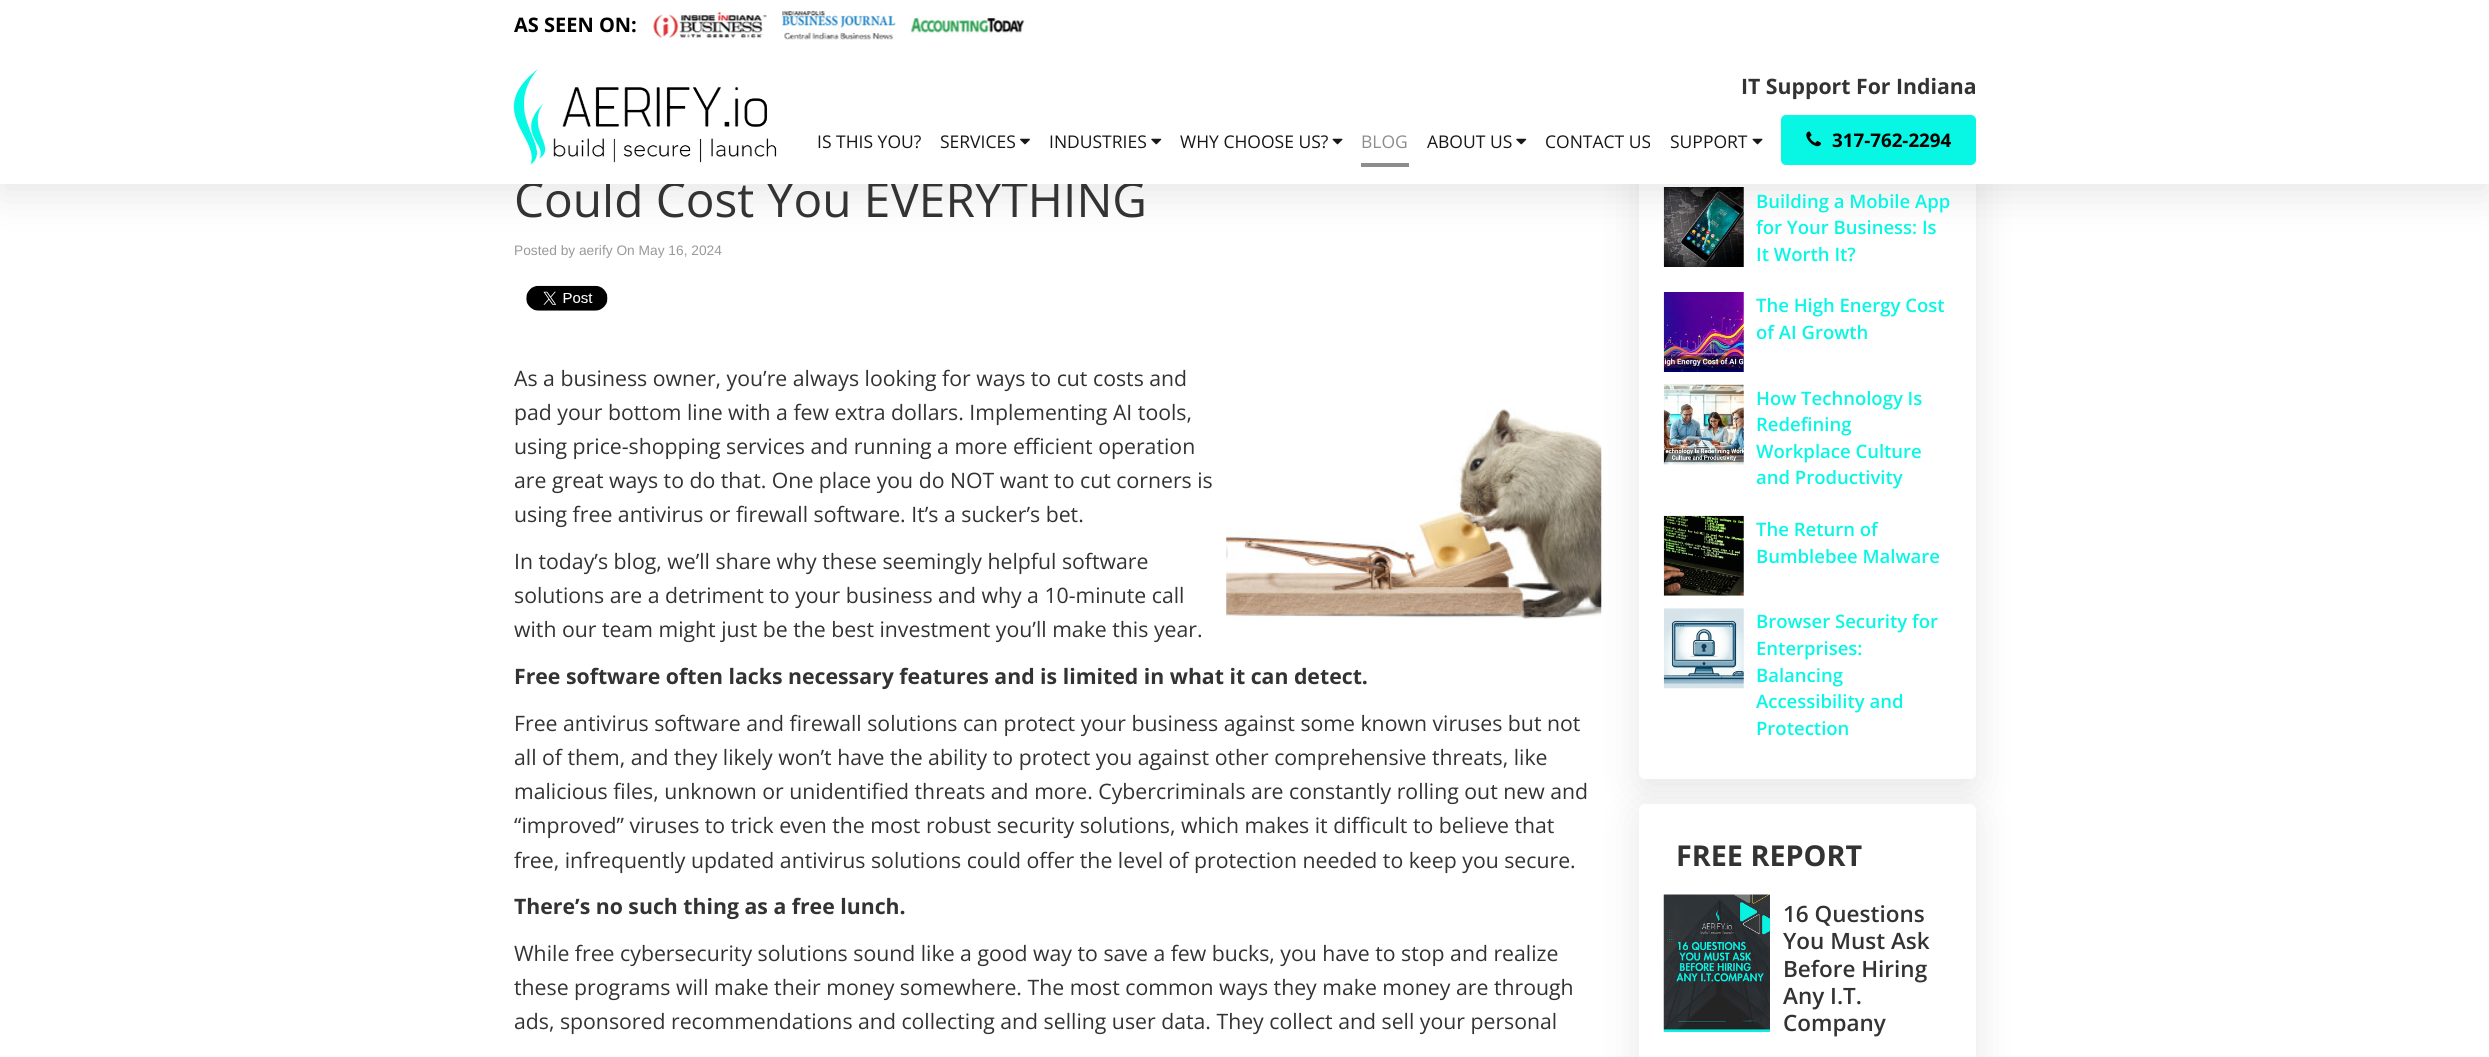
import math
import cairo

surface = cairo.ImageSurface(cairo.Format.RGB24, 2489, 1057)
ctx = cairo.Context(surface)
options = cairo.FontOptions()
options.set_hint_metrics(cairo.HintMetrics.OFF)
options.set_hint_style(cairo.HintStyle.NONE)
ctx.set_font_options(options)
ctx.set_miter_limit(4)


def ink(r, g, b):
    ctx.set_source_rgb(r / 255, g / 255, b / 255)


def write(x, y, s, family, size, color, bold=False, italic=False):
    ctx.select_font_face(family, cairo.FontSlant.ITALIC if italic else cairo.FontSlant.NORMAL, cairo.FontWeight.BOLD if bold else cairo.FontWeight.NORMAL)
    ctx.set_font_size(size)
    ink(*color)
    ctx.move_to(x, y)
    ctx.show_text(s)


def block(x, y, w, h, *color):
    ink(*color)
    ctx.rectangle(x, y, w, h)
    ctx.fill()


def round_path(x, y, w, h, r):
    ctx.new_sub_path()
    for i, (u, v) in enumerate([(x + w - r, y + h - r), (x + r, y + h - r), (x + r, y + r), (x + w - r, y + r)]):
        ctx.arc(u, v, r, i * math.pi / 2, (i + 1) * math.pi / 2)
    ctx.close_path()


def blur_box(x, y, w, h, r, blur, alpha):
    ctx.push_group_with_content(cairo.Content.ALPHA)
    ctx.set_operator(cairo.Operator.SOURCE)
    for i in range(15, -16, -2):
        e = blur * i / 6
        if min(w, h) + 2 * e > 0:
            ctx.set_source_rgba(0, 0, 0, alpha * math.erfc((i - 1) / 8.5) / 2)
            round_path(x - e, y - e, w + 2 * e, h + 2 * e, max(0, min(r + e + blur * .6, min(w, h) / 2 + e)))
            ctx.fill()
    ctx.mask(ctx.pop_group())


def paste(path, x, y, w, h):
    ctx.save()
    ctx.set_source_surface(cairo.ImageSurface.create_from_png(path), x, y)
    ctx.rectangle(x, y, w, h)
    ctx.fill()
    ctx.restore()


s1 = dict(family="Open Sans", size=47.75, color=(51, 51, 51))
s2 = dict(family="Open Sans", size=20, color=(0, 0, 0), bold=True)
s3 = dict(family="Open Sans", size=21.25, color=(51, 51, 51), bold=True)
s4 = dict(family="Open Sans", size=17.5, color=(23, 23, 23))
s5 = dict(family="Open Sans", size=17.5, color=(141, 141, 141))
s6 = dict(family="Open Sans", size=18.75, color=(0, 0, 0), bold=True)
s7 = dict(family="Liberation Sans", size=13.75, color=(153, 153, 153))
s8 = dict(family="Open Sans", size=21.25, color=(51, 51, 51))
s9 = dict(family="Open Sans SemiBold", size=18.5, color=(7, 247, 228))
s10 = dict(family="Open Sans", size=28.75, color=(51, 51, 51), bold=True)
s11 = dict(family="Open Sans SemiBold", size=22.5, color=(51, 51, 51))

ink(255, 255, 255)
ctx.paint()
paste("pic10.png", 1226, 409, 376, 211)
ink(0, 0, 0)
blur_box(1639, 106, 337, 683, 6, 20, 0.1)
ink(255, 255, 255)
round_path(1639, 96, 337, 683, 6)
ctx.fill()
paste("pic11.png", 1663, 187, 81, 80)
ink(0, 0, 0)
blur_box(0, 10, 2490, 184, 0, 20, 0.1)
write(514, 217, "Could Cost You EVERYTHING", **s1)
block(0, 0, 2489, 184, 255, 255, 255)
write(514, 32, "AS SEEN ON:", **s2)
paste("pic1.png", 653, 12, 114, 28)
paste("pic2.png", 782, 11, 114, 29)
paste("pic3.png", 910, 16, 115, 19)
paste("pic4.png", 513, 69, 264, 96)
write(1741, 94, "IT Support For Indiana", **s3)
write(817, 148, "IS THIS YOU?", **s4)
write(940, 148, "SERVICES", **s4)
paste("pic5.png", 1020, 138, 10, 7)
write(1049, 148, "INDUSTRIES", **s4)
paste("pic6.png", 1151, 138, 11, 7)
write(1180, 148, "WHY CHOOSE US?", **s4)
paste("pic7.png", 1332, 138, 11, 7)
write(1361, 148, "BLOG", **s5)
block(1361, 163, 48, 4, 141, 141, 141)
write(1427, 148, "ABOUT US", **s4)
paste("pic6.png", 1516, 138, 11, 7)
write(1545, 148, "CONTACT US", **s4)
write(1670, 148, "SUPPORT", **s4)
paste("pic7.png", 1752, 138, 11, 7)
ink(7, 247, 228)
round_path(1781, 115, 195, 50, 5)
ctx.fill()
paste("pic8.png", 1806, 131, 15, 16)
write(1832, 147, "317-762-2294", **s6)
write(514, 255, "Posted by aerify On May 16, 2024", **s7)
paste("pic9.png", 526, 285, 82, 26)
write(514, 386, "As a business owner, you’re always looking for ways to cut costs and", **s8)
write(514, 420, "pad your bottom line with a few extra dollars. Implementing AI tools,", **s8)
write(514, 454, "using price-shopping services and running a more efficient operation", **s8)
write(514, 488, "are great ways to do that. One place you do NOT want to cut corners is", **s8)
write(514, 522, "using free antivirus or firewall software. It’s a sucker’s bet.", **s8)
write(514, 569, "In today’s blog, we’ll share why these seemingly helpful software", **s8)
write(514, 603, "solutions are a detriment to your business and why a 10-minute call", **s8)
write(514, 637, "with our team might just be the best investment you’ll make this year.", **s8)
write(514, 684, "Free software often lacks necessary features and is limited in what it can detect.", **s3)
write(514, 731, "Free antivirus software and firewall solutions can protect your business against some known viruses but not", **s8)
write(514, 765, "all of them, and they likely won’t have the ability to protect you against other comprehensive threats, like", **s8)
write(514, 799, "malicious files, unknown or unidentified threats and more. Cybercriminals are constantly rolling out new and", **s8)
write(514, 833, "“improved” viruses to trick even the most robust security solutions, which makes it difficult to believe that", **s8)
write(514, 868, "free, infrequently updated antivirus solutions could offer the level of protection needed to keep you secure.", **s8)
write(514, 914, "There’s no such thing as a free lunch.", **s3)
write(514, 961, "While free cybersecurity solutions sound like a good way to save a few bucks, you have to stop and realize", **s8)
write(514, 995, "these programs will make their money somewhere. The most common ways they make money are through", **s8)
write(514, 1029, "ads, sponsored recommendations and collecting and selling user data. They collect and sell your personal", **s8)
write(1756, 208, "Building a Mobile App", **s9)
write(1756, 234, "for Your Business: Is", **s9)
write(1756, 261, "It Worth It?", **s9)
paste("pic12.png", 1663, 292, 81, 80)
write(1756, 312, "The High Energy Cost", **s9)
write(1756, 339, "of AI Growth", **s9)
paste("pic13.png", 1663, 384, 81, 81)
write(1756, 405, "How Technology Is", **s9)
write(1756, 431, "Redefining", **s9)
write(1756, 458, "Workplace Culture", **s9)
write(1756, 484, "and Productivity", **s9)
paste("pic14.png", 1663, 515, 81, 81)
write(1756, 536, "The Return of", **s9)
write(1756, 563, "Bumblebee Malware", **s9)
paste("pic15.png", 1663, 608, 81, 81)
write(1756, 628, "Browser Security for", **s9)
write(1756, 655, "Enterprises:", **s9)
write(1756, 682, "Balancing", **s9)
write(1756, 708, "Accessibility and", **s9)
write(1756, 735, "Protection", **s9)
ink(0, 0, 0)
blur_box(1639, 814, 337, 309, 6, 20, 0.1)
ink(255, 255, 255)
round_path(1639, 804, 337, 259, 6)
ctx.fill()
write(1676, 866, "FREE REPORT", **s10)
paste("pic16.png", 1663, 894, 107, 138)
write(1783, 922, "16 Questions", **s11)
write(1783, 949, "You Must Ask", **s11)
write(1783, 977, "Before Hiring", **s11)
write(1783, 1004, "Any I.T.", **s11)
write(1783, 1031, "Company", **s11)
surface.write_to_png("screenshot.png")
